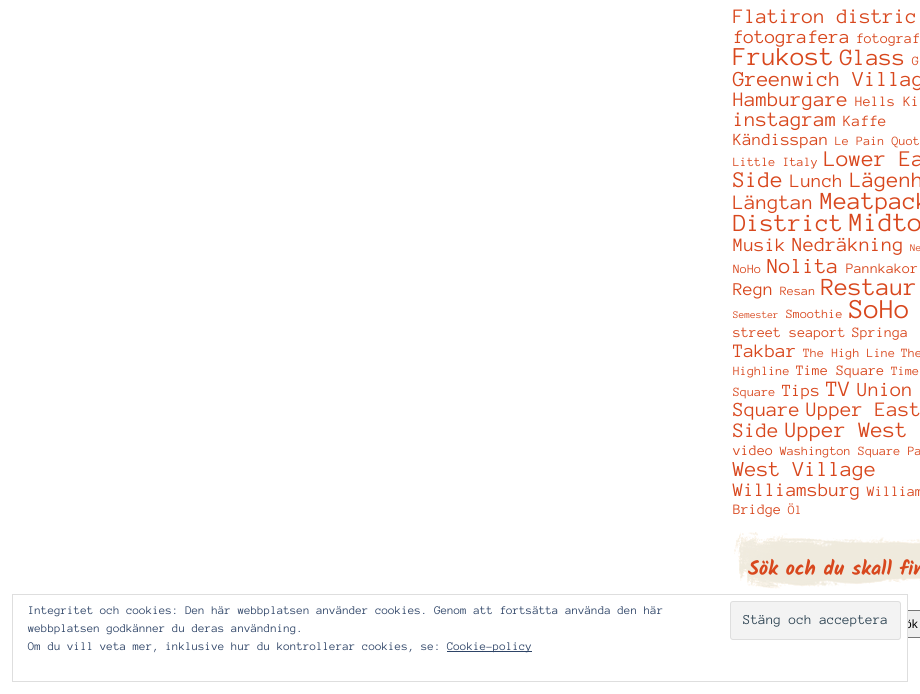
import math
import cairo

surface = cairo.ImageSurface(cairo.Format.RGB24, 920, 694)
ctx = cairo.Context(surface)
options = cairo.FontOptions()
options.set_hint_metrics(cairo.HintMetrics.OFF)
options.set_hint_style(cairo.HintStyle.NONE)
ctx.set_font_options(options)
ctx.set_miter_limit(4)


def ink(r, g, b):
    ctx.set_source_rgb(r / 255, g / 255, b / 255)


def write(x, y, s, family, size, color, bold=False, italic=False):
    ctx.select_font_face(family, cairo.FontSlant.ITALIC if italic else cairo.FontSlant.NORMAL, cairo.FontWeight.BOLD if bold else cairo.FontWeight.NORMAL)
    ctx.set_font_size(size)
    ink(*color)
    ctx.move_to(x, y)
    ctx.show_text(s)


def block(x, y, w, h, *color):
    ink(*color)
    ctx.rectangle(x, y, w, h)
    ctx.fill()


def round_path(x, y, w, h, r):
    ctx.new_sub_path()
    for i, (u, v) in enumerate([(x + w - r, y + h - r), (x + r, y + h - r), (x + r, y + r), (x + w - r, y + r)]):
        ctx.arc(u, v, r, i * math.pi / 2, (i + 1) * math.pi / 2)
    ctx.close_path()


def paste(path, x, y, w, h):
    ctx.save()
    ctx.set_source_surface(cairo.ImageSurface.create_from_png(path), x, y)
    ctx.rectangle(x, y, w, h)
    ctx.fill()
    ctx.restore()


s1 = dict(family="Anonymous Pro", size=21.1, color=(216, 71, 29))
s2 = dict(family="Anonymous Pro", size=19.5, color=(216, 71, 29))
s3 = dict(family="Anonymous Pro", size=14.75, color=(216, 71, 29))
s4 = dict(family="Anonymous Pro", size=26.5, color=(216, 71, 29))
s5 = dict(family="Anonymous Pro", size=24, color=(216, 71, 29))
s6 = dict(family="Anonymous Pro", size=13, color=(216, 71, 29))
s7 = dict(family="Anonymous Pro", size=21.9, color=(216, 71, 29))
s8 = dict(family="Anonymous Pro", size=16, color=(216, 71, 29))
s9 = dict(family="Anonymous Pro", size=17.5, color=(216, 71, 29))
s10 = dict(family="Anonymous Pro", size=23, color=(216, 71, 29))
s11 = dict(family="Anonymous Pro", size=22.5, color=(216, 71, 29))
s12 = dict(family="Anonymous Pro", size=25.25, color=(216, 71, 29))
s13 = dict(family="Anonymous Pro", size=27, color=(216, 71, 29))
s14 = dict(family="Anonymous Pro", size=20.5, color=(216, 71, 29))
s15 = dict(family="Anonymous Pro", size=10.5, color=(216, 71, 29))
s16 = dict(family="Anonymous Pro", size=18.5, color=(216, 71, 29))
s17 = dict(family="Anonymous Pro", size=28, color=(216, 71, 29))
s18 = dict(family="Kalam", size=20, color=(216, 71, 29), bold=True)
s19 = dict(family="Liberation Sans", size=12, color=(0, 0, 0))
s20 = dict(family="Anonymous Pro", size=12, color=(46, 68, 103))
s21 = dict(family="Anonymous Pro", size=14, color=(46, 68, 83))

ink(255, 255, 255)
ctx.paint()
write(733, 23, "Flatiron distric", **s1)
write(733, 43, "fotografera", **s2)
write(856, 43, "fotograf", **s3)
write(733, 65, "Frukost", **s4)
write(840, 65, "Glass", **s5)
write(912, 65, "G", **s6)
write(733, 86, "Greenwich Villag", **s7)
write(733, 106, "Hamburgare", **s1)
write(855, 106, "Hells Ki", **s3)
write(733, 126, "instagram", **s1)
write(843, 126, "Kaffe", **s8)
write(733, 145, "Kändisspan", **s9)
write(835, 145, "Le Pain Quot", **s6)
write(733, 166, "Little Italy", **s6)
write(824, 166, "Lower Ea", **s10)
write(733, 187, "Side", **s10)
write(790, 187, "Lunch", **s2)
write(850, 187, "Lägenh", **s11)
write(733, 209, "Längtan", **s1)
write(820, 209, "Meatpack", **s12)
write(733, 231, "District", **s12)
write(849, 231, "Midto", **s13)
write(733, 251, "Musik", **s2)
write(792, 251, "Nedräkning", **s14)
write(910, 251, "Ne", **s15)
write(733, 273, "NoHo", **s6)
write(767, 273, "Nolita", **s7)
write(846, 273, "Pannkakor", **s3)
write(733, 295, "Regn", **s16)
write(780, 295, "Resan", **s6)
write(821, 295, "Restaur", **s12)
write(733, 318, "Semester", **s15)
write(786, 318, "Smoothie", **s6)
write(849, 318, "SoHo", **s17)
write(733, 337, "street seaport", **s3)
write(852, 337, "Springa", **s3)
write(733, 357, "Takbar", **s2)
write(803, 357, "The High Line", **s6)
write(901, 357, "The", **s6)
write(733, 375, "Highline", **s6)
write(796, 375, "Time Square", **s3)
write(891, 375, "Time", **s6)
write(733, 396, "Square", **s6)
write(782, 396, "Tips", **s9)
write(826, 396, "TV", **s11)
write(857, 396, "Union", **s14)
write(733, 416, "Square", **s14)
write(806, 416, "Upper East", **s1)
write(733, 437, "Side", **s1)
write(785, 437, "Upper West", **s11)
write(733, 455, "video", **s3)
write(780, 455, "Washington Square Pa", **s6)
write(733, 476, "West Village", **s7)
write(733, 496, "Williamsburg", **s2)
write(867, 496, "William", **s3)
write(733, 514, "Bridge", **s3)
write(788, 514, "Öl", **s6)
paste("pic1.png", 734, 532, 186, 57)
write(748, 575, "Sök och du skall fin", **s18)
block(908, 611, 12, 26, 239, 239, 239)
ctx.rectangle(890.5, 610.5, 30, 27)
ink(118, 118, 118)
ctx.set_line_width(1)
ctx.stroke()
write(905, 628, "ök", **s19)
block(890, 610, 17, 28, 255, 255, 255)
ctx.rectangle(12.5, 594.5, 895, 87)
ink(222, 222, 222)
ctx.stroke()
write(28, 614, "Integritet och cookies: Den här webbplatsen använder cookies. Genom att fortsätta använda den här", **s20)
ink(243, 243, 243)
round_path(730.5, 601.5, 170, 38, 2.5)
ctx.fill_preserve()
ink(222, 222, 222)
ctx.stroke()
write(743, 624, "Stäng och acceptera", **s21)
write(28, 632, "webbplatsen godkänner du deras användning.", **s20)
write(28, 650, "Om du vill veta mer, inklusive hur du kontrollerar cookies, se:", **s20)
block(447, 651, 85, 1, 46, 68, 103)
write(447, 650, "Cookie-policy", **s20)
surface.write_to_png("screenshot.png")
